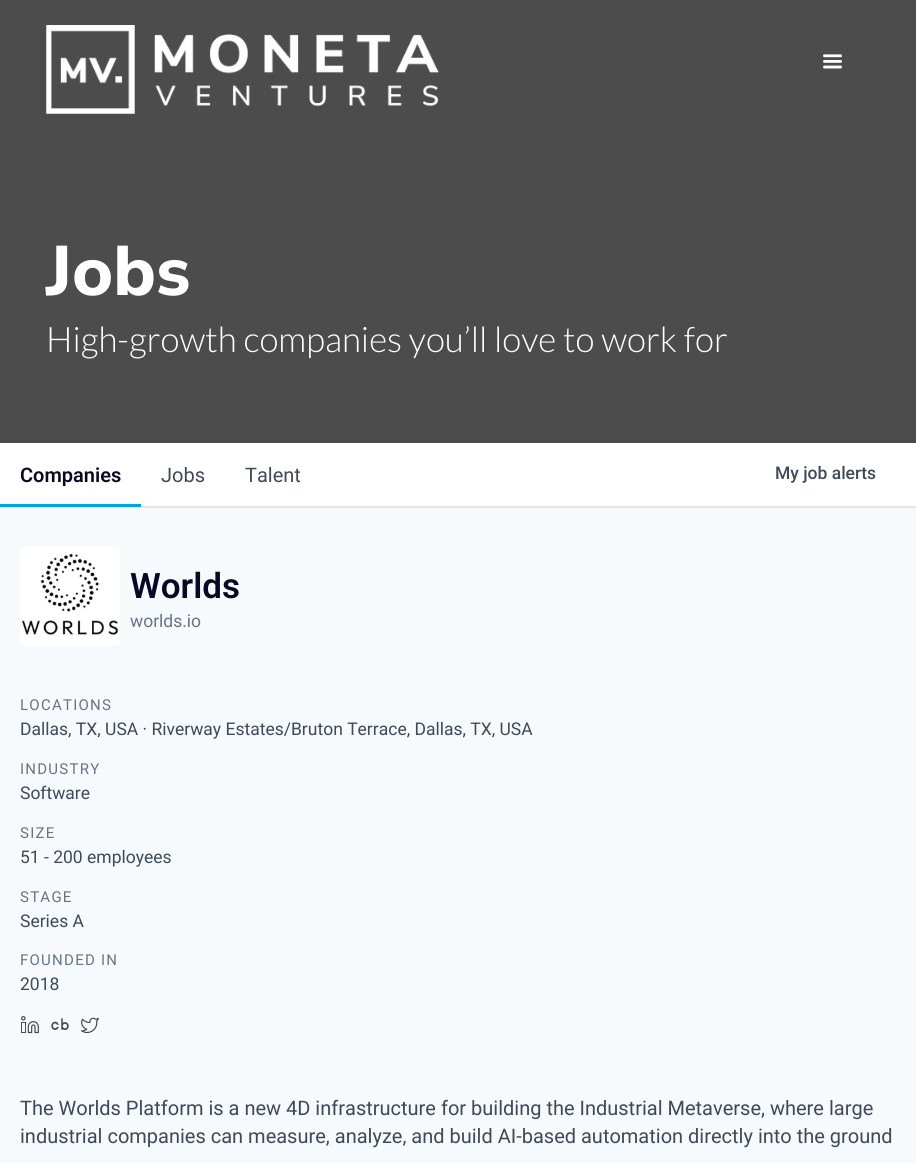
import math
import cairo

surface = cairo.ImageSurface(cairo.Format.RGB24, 916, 1163)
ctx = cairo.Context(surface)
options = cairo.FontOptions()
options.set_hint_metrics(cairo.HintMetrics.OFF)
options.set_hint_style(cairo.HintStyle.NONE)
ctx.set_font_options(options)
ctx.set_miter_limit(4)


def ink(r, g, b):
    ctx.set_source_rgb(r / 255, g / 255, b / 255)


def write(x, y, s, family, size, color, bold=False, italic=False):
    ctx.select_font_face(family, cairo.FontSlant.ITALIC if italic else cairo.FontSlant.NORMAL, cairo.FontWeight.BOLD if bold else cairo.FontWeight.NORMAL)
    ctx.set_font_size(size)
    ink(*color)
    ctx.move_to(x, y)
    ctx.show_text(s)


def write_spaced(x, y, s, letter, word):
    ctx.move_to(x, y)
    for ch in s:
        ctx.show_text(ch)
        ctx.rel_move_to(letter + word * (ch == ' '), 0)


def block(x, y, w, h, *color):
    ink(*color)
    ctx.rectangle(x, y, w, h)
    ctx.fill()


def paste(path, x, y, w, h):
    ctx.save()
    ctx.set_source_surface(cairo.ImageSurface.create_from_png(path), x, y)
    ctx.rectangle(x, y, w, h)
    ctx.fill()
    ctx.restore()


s1 = dict(family="Nunito Sans ExtraBold", size=70, color=(255, 255, 255))
s2 = dict(family="Lato Light", size=35, color=(255, 255, 255))
s3 = dict(family="Roboto SemiBold", size=20, color=(9, 9, 37))
s4 = dict(family="Roboto", size=20, color=(63, 73, 90))
s5 = dict(family="Roboto Medium", size=17.5, color=(63, 73, 90))
s6 = dict(family="Roboto SemiBold", size=35, color=(9, 9, 37))
s7 = dict(family="Roboto", size=17.5, color=(103, 115, 139))
s8 = dict(family="Roboto", size=17.5, color=(63, 73, 90))

ink(247, 250, 252)
ctx.paint()
block(0, 0, 916, 443, 76, 76, 76)
paste("pic1.png", 46, 25, 393, 89)
paste("pic2.png", 823, 54, 19, 15)
write(46, 295, "Jobs", **s1)
write(46, 352, "High-growth companies you’ll love to work for", **s2)
block(0, 506, 916, 2, 229, 229, 229)
block(0, 443, 916, 63, 255, 255, 255)
write(20, 482, "Companies", **s3)
block(0, 504, 141, 3, 0, 162, 223)
write(161, 482, "Jobs", **s4)
write(245, 482, "Talent", **s4)
write(775, 479, "My job alerts", **s5)
paste("pic3.png", 20, 546, 100, 100)
write(130, 598, "Worlds", **s6)
write(130, 627, "worlds.io", **s7)
ctx.set_font_size(15)
write_spaced(20, 710, "LOCATIONS", 1.25, 0)
write(20, 735, "Dallas, TX, USA · Riverway Estates/Bruton Terrace, Dallas, TX, USA", **s8)
ctx.set_font_size(15)
ink(103, 115, 139)
write_spaced(20, 774, "INDUSTRY", 1.25, 0)
write(20, 799, "Software", **s8)
ctx.set_font_size(15)
ink(103, 115, 139)
write_spaced(20, 838, "SIZE", 1.25, 0)
write(20, 863, "51 - 200 employees", **s8)
ctx.set_font_size(15)
ink(103, 115, 139)
write_spaced(20, 902, "STAGE", 1.25, 0)
write(20, 927, "Series A", **s8)
ctx.set_font_size(15)
ink(103, 115, 139)
write_spaced(20, 965, "FOUNDED IN", 1.25, 0)
write(20, 990, "2018", **s8)
paste("pic4.png", 21, 1016, 18, 18)
paste("pic5.png", 51, 1018, 18, 12)
paste("pic6.png", 81, 1017, 18, 17)
write(20, 1115, "The Worlds Platform is a new 4D infrastructure for building the Industrial Metaverse, where large", **s4)
write(20, 1143, "industrial companies can measure, analyze, and build AI-based automation directly into the ground", **s4)
surface.write_to_png("screenshot.png")
